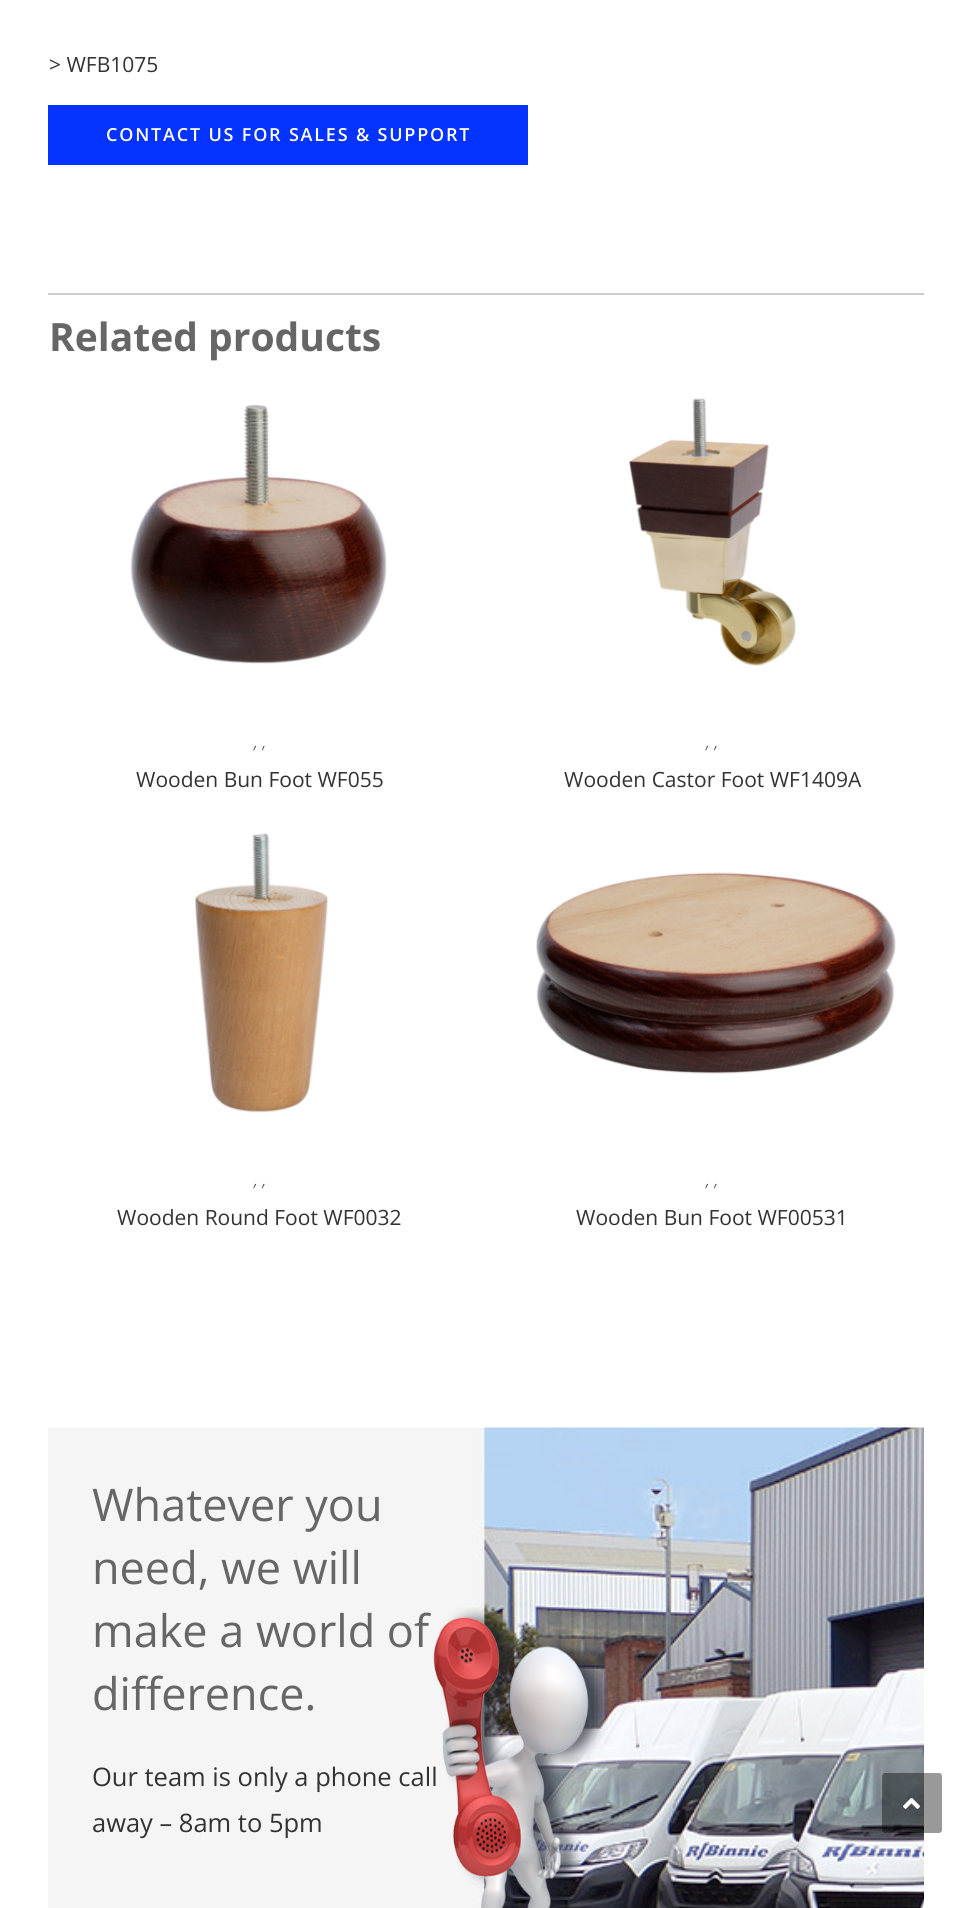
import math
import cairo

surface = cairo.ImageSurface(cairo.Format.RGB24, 971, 1908)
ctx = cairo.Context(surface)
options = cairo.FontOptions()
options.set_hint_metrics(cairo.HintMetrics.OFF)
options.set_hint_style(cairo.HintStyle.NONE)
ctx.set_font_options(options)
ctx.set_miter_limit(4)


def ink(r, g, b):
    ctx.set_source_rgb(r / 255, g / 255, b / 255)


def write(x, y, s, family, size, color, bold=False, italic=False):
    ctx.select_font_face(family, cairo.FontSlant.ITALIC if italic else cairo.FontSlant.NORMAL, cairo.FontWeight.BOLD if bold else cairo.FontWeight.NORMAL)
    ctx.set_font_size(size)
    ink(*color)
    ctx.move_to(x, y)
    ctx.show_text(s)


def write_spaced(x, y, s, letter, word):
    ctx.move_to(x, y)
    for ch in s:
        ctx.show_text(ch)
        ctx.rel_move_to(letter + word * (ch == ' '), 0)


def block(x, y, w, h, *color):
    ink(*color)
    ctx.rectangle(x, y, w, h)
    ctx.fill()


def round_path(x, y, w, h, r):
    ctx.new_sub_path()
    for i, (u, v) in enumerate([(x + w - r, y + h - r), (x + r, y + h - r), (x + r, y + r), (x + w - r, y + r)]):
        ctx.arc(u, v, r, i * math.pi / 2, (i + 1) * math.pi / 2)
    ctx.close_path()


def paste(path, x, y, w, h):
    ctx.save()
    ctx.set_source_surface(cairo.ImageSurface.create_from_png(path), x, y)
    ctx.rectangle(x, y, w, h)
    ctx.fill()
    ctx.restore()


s1 = dict(family="Open Sans", size=21, color=(51, 51, 51))
s2 = dict(family="Open Sans", size=39, color=(102, 102, 102), bold=True)
s3 = dict(family="Open Sans Light", size=18, color=(51, 51, 51), italic=True)
s4 = dict(family="Open Sans", size=45, color=(102, 102, 102))
s5 = dict(family="Open Sans", size=25.5, color=(51, 51, 51))

ink(255, 255, 255)
ctx.paint()
write(49, 72, "> WFB1075", **s1)
block(48, 105, 480, 60, 4, 50, 255)
ctx.select_font_face("Open Sans SemiBold")
ctx.set_font_size(18)
ink(255, 255, 255)
write_spaced(106, 141, "CONTACT US FOR SALES & SUPPORT", 1.8, 0)
block(48, 293, 876, 2, 204, 204, 204)
write(49, 351, "Related products", **s2)
paste("pic1.png", 130, 404, 257, 260)
write(254, 748, ", ,", **s3)
write(136, 787, "Wooden Bun Foot WF055", **s1)
paste("pic2.png", 628, 398, 168, 268)
write(706, 748, ", ,", **s3)
write(564, 787, "Wooden Castor Foot WF1409A", **s1)
paste("pic3.png", 195, 833, 133, 280)
write(254, 1186, ", ,", **s3)
write(117, 1225, "Wooden Round Foot WF0032", **s1)
paste("pic4.png", 536, 872, 360, 202)
write(706, 1186, ", ,", **s3)
write(576, 1225, "Wooden Bun Foot WF00531", **s1)
paste("pic5.png", 48, 1427, 876, 481)
paste("pic6.png", 433, 1607, 175, 301)
write(92, 1521, "Whatever you", **s4)
write(92, 1584, "need, we will", **s4)
write(92, 1647, "make a world of", **s4)
write(92, 1710, "difference.", **s4)
write(92, 1786, "Our team is only a phone call", **s5)
write(92, 1832, "away – 8am to 5pm", **s5)
ctx.set_source_rgba(0, 0, 0, 0.4)
round_path(882, 1773, 60, 60, 3)
ctx.fill()
paste("pic7.png", 903, 1798, 17, 11)
surface.write_to_png("screenshot.png")
